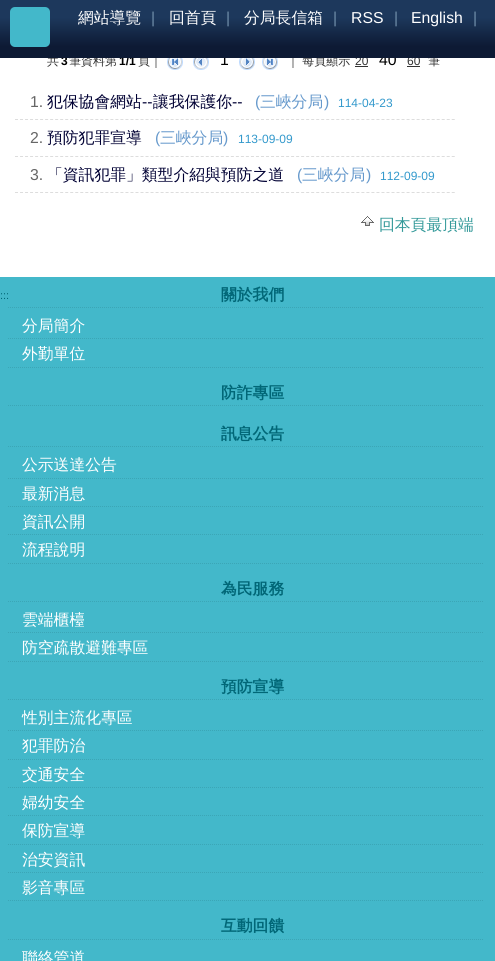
import math
import cairo

surface = cairo.ImageSurface(cairo.Format.RGB24, 495, 961)
ctx = cairo.Context(surface)
options = cairo.FontOptions()
options.set_hint_metrics(cairo.HintMetrics.OFF)
options.set_hint_style(cairo.HintStyle.NONE)
ctx.set_font_options(options)
ctx.set_miter_limit(4)


def ink(r, g, b):
    ctx.set_source_rgb(r / 255, g / 255, b / 255)


def write(x, y, s, family, size, color, bold=False, italic=False):
    ctx.select_font_face(family, cairo.FontSlant.ITALIC if italic else cairo.FontSlant.NORMAL, cairo.FontWeight.BOLD if bold else cairo.FontWeight.NORMAL)
    ctx.set_font_size(size)
    ink(*color)
    ctx.move_to(x, y)
    ctx.show_text(s)


def block(x, y, w, h, *color):
    ink(*color)
    ctx.rectangle(x, y, w, h)
    ctx.fill()


def round_path(x, y, w, h, r):
    ctx.new_sub_path()
    for i, (u, v) in enumerate([(x + w - r, y + h - r), (x + r, y + h - r), (x + r, y + r), (x + w - r, y + r)]):
        ctx.arc(u, v, r, i * math.pi / 2, (i + 1) * math.pi / 2)
    ctx.close_path()


def paste(path, x, y, w, h):
    ctx.save()
    ctx.set_source_surface(cairo.ImageSurface.create_from_png(path), x, y)
    ctx.rectangle(x, y, w, h)
    ctx.fill()
    ctx.restore()


s1 = dict(family="WenQuanYi Zen Hei Medium", size=12, color=(51, 51, 51))
s2 = dict(family="Liberation Sans", size=12, color=(0, 0, 0), bold=True)
s3 = dict(family="Liberation Sans", size=15.8, color=(0, 0, 0))
s4 = dict(family="Liberation Sans", size=12, color=(51, 51, 51))
s5 = dict(family="WenQuanYi Zen Hei Medium", size=15.8, color=(255, 255, 255))
s6 = dict(family="Liberation Sans", size=15.8, color=(109, 139, 166))
s7 = dict(family="Liberation Sans", size=15.8, color=(255, 255, 255))
s8 = dict(family="Liberation Sans", size=15.8, color=(102, 102, 102))
s9 = dict(family="WenQuanYi Zen Hei Medium", size=15.8, color=(0, 0, 51))
s10 = dict(family="Liberation Sans", size=15.8, color=(0, 0, 51))
s11 = dict(family="Liberation Sans", size=15.8, color=(102, 153, 204))
s12 = dict(family="WenQuanYi Zen Hei Medium", size=15.8, color=(102, 153, 204))
s13 = dict(family="Liberation Sans", size=12, color=(51, 153, 204))
s14 = dict(family="WenQuanYi Zen Hei Medium", size=15.8, color=(51, 153, 153))
s15 = dict(family="Liberation Sans", size=11, color=(1, 103, 119))
s16 = dict(family="WenQuanYi Zen Hei", size=15.8, color=(1, 103, 119), bold=True)

ink(255, 255, 255)
ctx.paint()
write(47, 65, "共", **s1)
write(61, 65, "3", **s2)
write(69, 65, "筆資料第", **s1)
write(119, 65, "1/1", **s2)
write(138, 65, "頁｜", **s1)
write(220, 65, "1", **s3)
write(287, 65, "｜ 每頁顯示", **s1)
write(355, 65, "20", **s4)
write(379, 65, "40", **s3)
write(407, 65, "60", **s4)
write(428, 65, "筆", **s1)
gradient = cairo.LinearGradient(248, 58, 248, 0)
gradient.add_color_stop_rgba(0.2, 0.051, 0.102, 0.204, 1)
gradient.add_color_stop_rgba(0.7, 0.114, 0.22, 0.361, 1)
gradient.add_color_stop_rgba(1, 0.114, 0.22, 0.361, 1)
ctx.set_source(gradient)
ctx.rectangle(0, 0, 495, 58)
ctx.fill()
ink(67, 184, 202)
round_path(10, 7, 40, 40, 5)
ctx.fill()
write(78, 23, "網站導覽", **s5)
write(151, 23, "|", **s6)
write(169, 23, "回首頁", **s5)
write(226, 23, "|", **s6)
write(244, 23, "分局長信箱", **s5)
write(333, 23, "|", **s6)
write(351, 23, "RSS", **s7)
write(394, 23, "|", **s6)
write(411, 23, "English", **s7)
write(473, 23, "|", **s6)
paste("pic1.png", 167, 58, 16, 12)
paste("pic2.png", 193, 58, 16, 12)
paste("pic3.png", 239, 58, 16, 12)
paste("pic4.png", 262, 58, 16, 12)
block(355, 66, 13, 1, 51, 51, 51)
block(407, 66, 13, 1, 51, 51, 51)
ctx.new_path()
ctx.move_to(15, 119.5)
ctx.line_to(455, 119.5)
ink(221, 221, 221)
ctx.set_line_width(1)
ctx.set_dash([3, 2.02])
ctx.stroke()
write(30, 107, "1.", **s8)
write(47, 107, "犯保協會網站", **s9)
write(142, 107, "--", **s10)
write(153, 107, "讓我保護你", **s9)
write(232, 107, "--", **s10)
write(255, 107, "(", **s11)
write(260, 107, "三峽分局", **s12)
write(324, 107, ")", **s11)
write(338, 107, "114-04-23", **s13)
ctx.new_path()
ctx.move_to(15, 156.5)
ctx.line_to(455, 156.5)
ink(221, 221, 221)
ctx.stroke()
write(30, 143, "2.", **s8)
write(47, 143, "預防犯罪宣導", **s9)
write(155, 143, "(", **s11)
write(160, 143, "三峽分局", **s12)
write(223, 143, ")", **s11)
write(238, 143, "113-09-09", **s13)
ctx.new_path()
ctx.move_to(15, 192.5)
ctx.line_to(455, 192.5)
ink(221, 221, 221)
ctx.stroke()
write(30, 180, "3.", **s8)
write(47, 180, "「資訊犯罪」類型介紹與預防之道", **s9)
write(297, 180, "(", **s11)
write(302, 180, "三峽分局", **s12)
write(366, 180, ")", **s11)
write(380, 180, "112-09-09", **s13)
paste("pic5.png", 361, 216, 13, 10)
write(379, 230, "回本頁最頂端", **s14)
block(0, 277, 495, 684, 67, 184, 202)
write(0, 299, ":::", **s15)
ctx.new_path()
ctx.move_to(8, 307.5)
ctx.line_to(483, 307.5)
ink(59, 166, 182)
ctx.set_dash([1, 1])
ctx.stroke()
write(221, 300, "關於我們", **s16)
ctx.new_path()
ctx.move_to(8, 338.5)
ctx.line_to(483, 338.5)
ink(59, 166, 182)
ctx.stroke()
write(22, 331, "分局簡介", **s5)
ctx.new_path()
ctx.move_to(8, 367.5)
ctx.line_to(483, 367.5)
ink(59, 166, 182)
ctx.stroke()
write(22, 359, "外勤單位", **s5)
ctx.new_path()
ctx.move_to(8, 405.5)
ctx.line_to(483, 405.5)
ink(59, 166, 182)
ctx.stroke()
write(221, 398, "防詐專區", **s16)
ctx.new_path()
ctx.move_to(8, 446.5)
ctx.line_to(483, 446.5)
ink(59, 166, 182)
ctx.stroke()
write(221, 439, "訊息公告", **s16)
ctx.new_path()
ctx.move_to(8, 478.5)
ctx.line_to(483, 478.5)
ink(59, 166, 182)
ctx.stroke()
write(22, 470, "公示送達公告", **s5)
ctx.new_path()
ctx.move_to(8, 506.5)
ctx.line_to(483, 506.5)
ink(59, 166, 182)
ctx.stroke()
write(22, 499, "最新消息", **s5)
ctx.new_path()
ctx.move_to(8, 534.5)
ctx.line_to(483, 534.5)
ink(59, 166, 182)
ctx.stroke()
write(22, 527, "資訊公開", **s5)
ctx.new_path()
ctx.move_to(8, 563.5)
ctx.line_to(483, 563.5)
ink(59, 166, 182)
ctx.stroke()
write(22, 555, "流程說明", **s5)
ctx.new_path()
ctx.move_to(8, 601.5)
ctx.line_to(483, 601.5)
ink(59, 166, 182)
ctx.stroke()
write(221, 594, "為民服務", **s16)
ctx.new_path()
ctx.move_to(8, 632.5)
ctx.line_to(483, 632.5)
ink(59, 166, 182)
ctx.stroke()
write(22, 625, "雲端櫃檯", **s5)
ctx.new_path()
ctx.move_to(8, 661.5)
ctx.line_to(483, 661.5)
ink(59, 166, 182)
ctx.stroke()
write(22, 653, "防空疏散避難專區", **s5)
ctx.new_path()
ctx.move_to(8, 699.5)
ctx.line_to(483, 699.5)
ink(59, 166, 182)
ctx.stroke()
write(221, 692, "預防宣導", **s16)
ctx.new_path()
ctx.move_to(8, 730.5)
ctx.line_to(483, 730.5)
ink(59, 166, 182)
ctx.stroke()
write(22, 723, "性別主流化專區", **s5)
ctx.new_path()
ctx.move_to(8, 759.5)
ctx.line_to(483, 759.5)
ink(59, 166, 182)
ctx.stroke()
write(22, 751, "犯罪防治", **s5)
ctx.new_path()
ctx.move_to(8, 787.5)
ctx.line_to(483, 787.5)
ink(59, 166, 182)
ctx.stroke()
write(22, 780, "交通安全", **s5)
ctx.new_path()
ctx.move_to(8, 815.5)
ctx.line_to(483, 815.5)
ink(59, 166, 182)
ctx.stroke()
write(22, 808, "婦幼安全", **s5)
ctx.new_path()
ctx.move_to(8, 844.5)
ctx.line_to(483, 844.5)
ink(59, 166, 182)
ctx.stroke()
write(22, 836, "保防宣導", **s5)
ctx.new_path()
ctx.move_to(8, 872.5)
ctx.line_to(483, 872.5)
ink(59, 166, 182)
ctx.stroke()
write(22, 865, "治安資訊", **s5)
ctx.new_path()
ctx.move_to(8, 900.5)
ctx.line_to(483, 900.5)
ink(59, 166, 182)
ctx.stroke()
write(22, 893, "影音專區", **s5)
ctx.new_path()
ctx.move_to(8, 939.5)
ctx.line_to(483, 939.5)
ink(59, 166, 182)
ctx.stroke()
write(221, 931, "互動回饋", **s16)
write(22, 963, "聯絡管道", **s5)
surface.write_to_png("screenshot.png")
